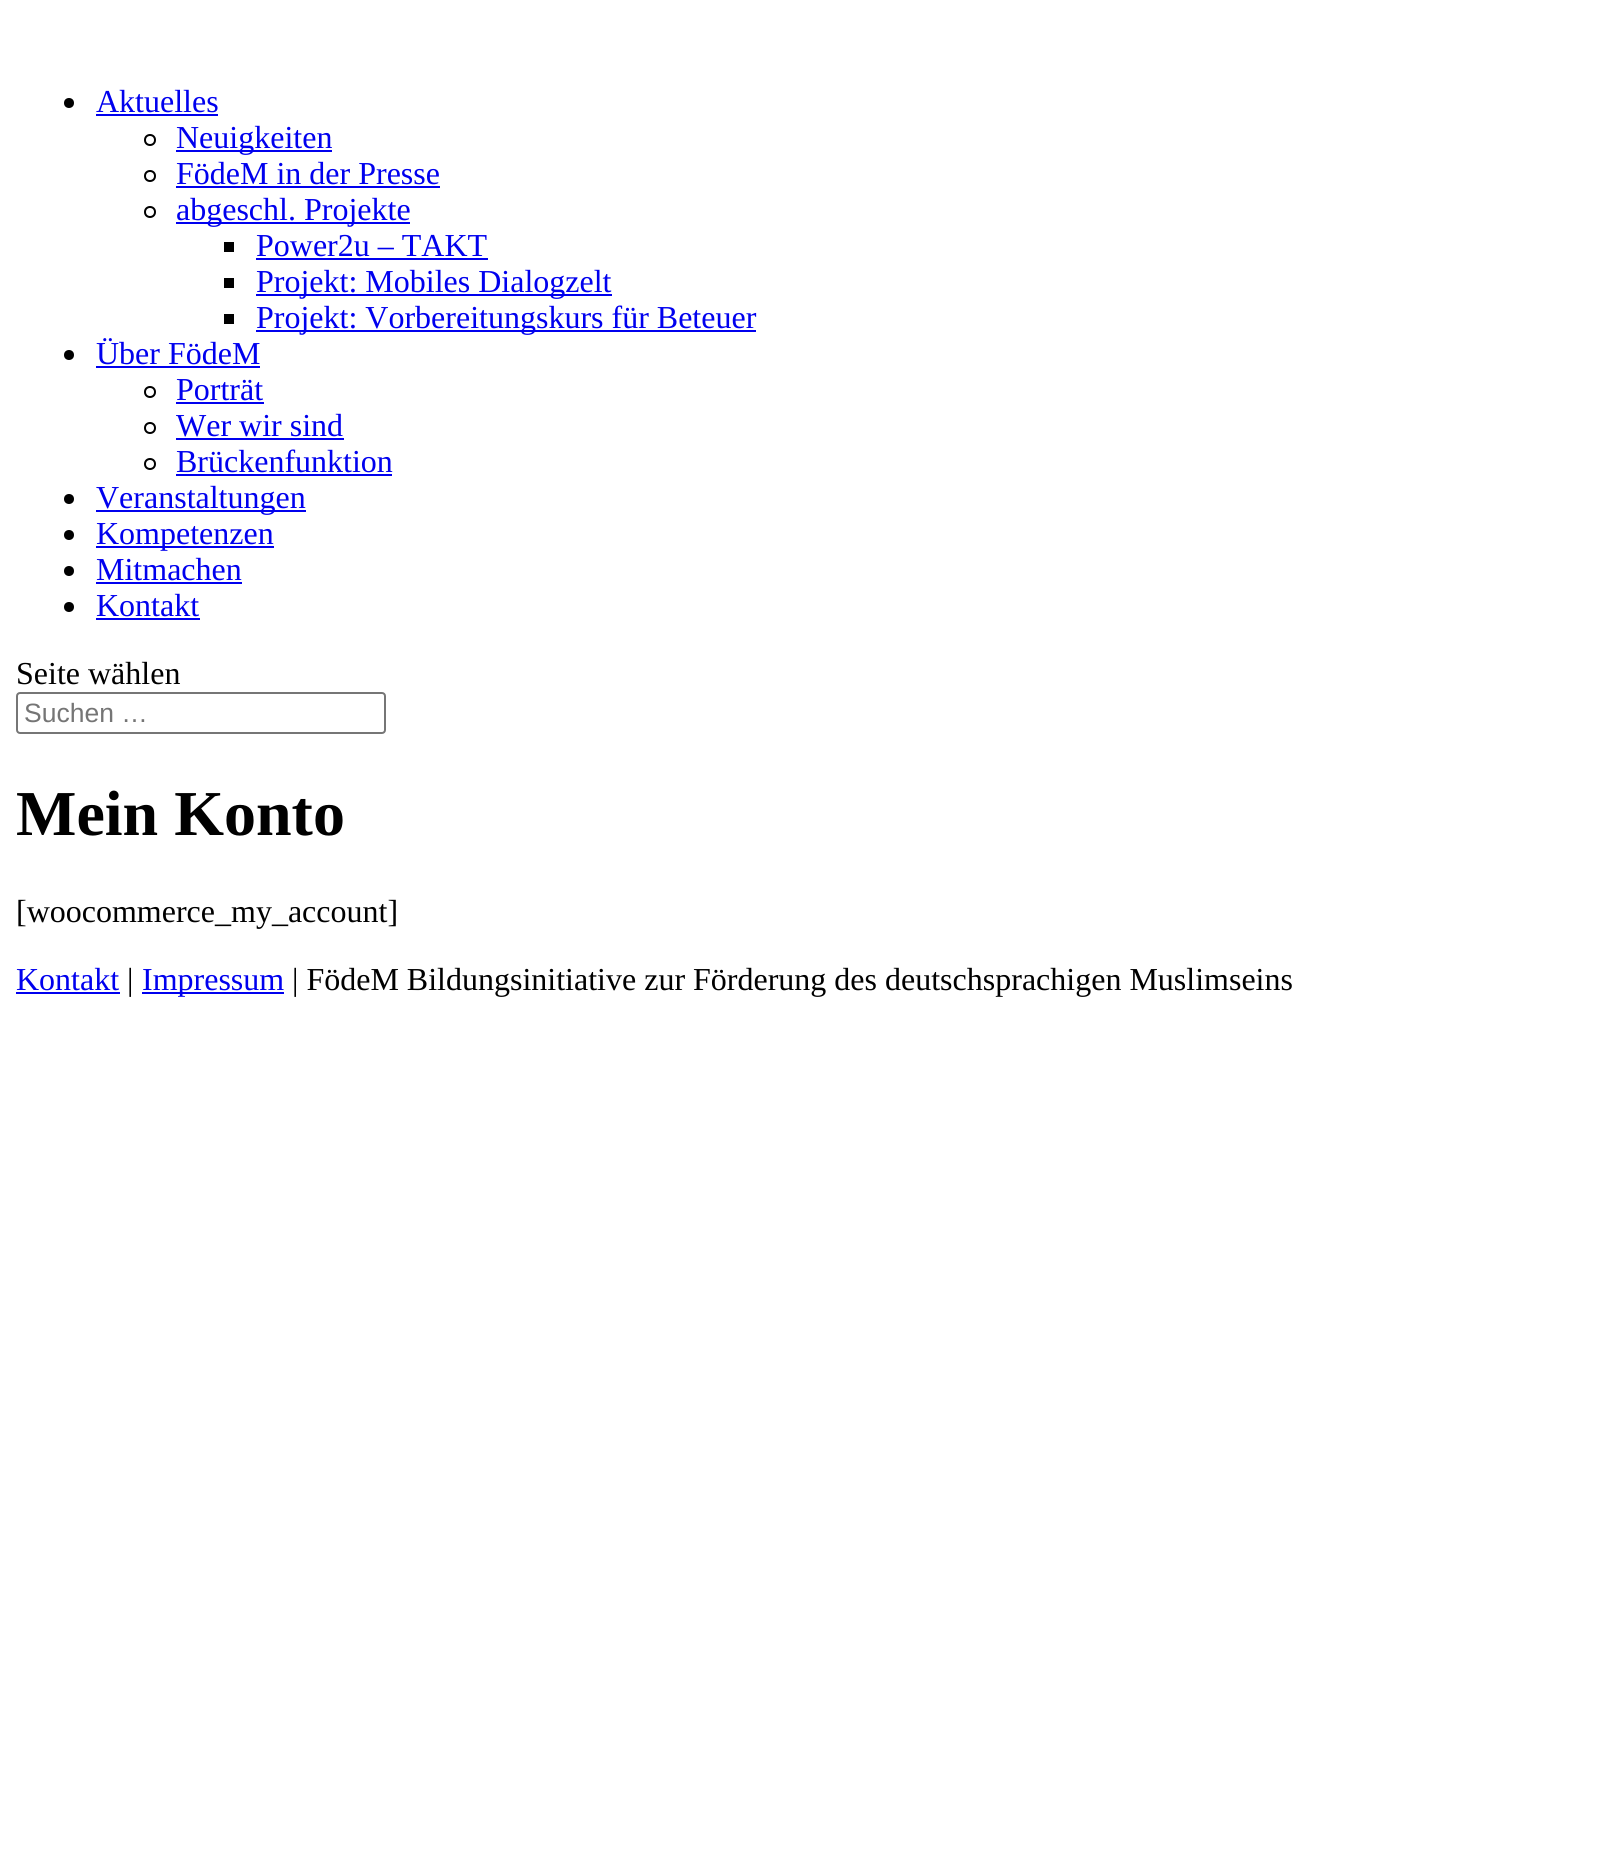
import math
import cairo

surface = cairo.ImageSurface(cairo.Format.RGB24, 1617, 1859)
ctx = cairo.Context(surface)
options = cairo.FontOptions()
options.set_hint_metrics(cairo.HintMetrics.OFF)
options.set_hint_style(cairo.HintStyle.NONE)
ctx.set_font_options(options)
ctx.set_miter_limit(4)


def ink(r, g, b):
    ctx.set_source_rgb(r / 255, g / 255, b / 255)


def write(x, y, s, family, size, color, bold=False, italic=False):
    ctx.select_font_face(family, cairo.FontSlant.ITALIC if italic else cairo.FontSlant.NORMAL, cairo.FontWeight.BOLD if bold else cairo.FontWeight.NORMAL)
    ctx.set_font_size(size)
    ink(*color)
    ctx.move_to(x, y)
    ctx.show_text(s)


def block(x, y, w, h, *color):
    ink(*color)
    ctx.rectangle(x, y, w, h)
    ctx.fill()


def round_path(x, y, w, h, r):
    ctx.new_sub_path()
    for i, (u, v) in enumerate([(x + w - r, y + h - r), (x + r, y + h - r), (x + r, y + r), (x + w - r, y + r)]):
        ctx.arc(u, v, r, i * math.pi / 2, (i + 1) * math.pi / 2)
    ctx.close_path()


s1 = dict(family="Liberation Serif", size=32, color=(0, 0, 238))
s2 = dict(family="Liberation Serif", size=32, color=(0, 0, 0))
s3 = dict(family="Liberation Sans", size=26.5, color=(117, 117, 117))
s4 = dict(family="Liberation Serif", size=64, color=(0, 0, 0), bold=True)

ink(255, 255, 255)
ctx.paint()
ink(0, 0, 0)
ctx.arc(69, 103, 5, 0, 2 * math.pi)
ctx.fill()
write(96, 112, "Aktuelles", **s1)
block(96, 114, 122, 2, 0, 0, 238)
ctx.new_path()
ctx.arc(150, 140, 5, 0, 2 * math.pi)
ink(0, 0, 0)
ctx.stroke()
block(176, 150, 156, 2, 0, 0, 238)
write(176, 148, "Neuigkeiten", **s1)
ctx.new_path()
ctx.arc(150, 176, 5, 0, 2 * math.pi)
ink(0, 0, 0)
ctx.stroke()
write(176, 184, "FödeM in der Presse", **s1)
block(176, 186, 264, 2, 0, 0, 238)
ctx.new_path()
ctx.arc(150, 212, 5, 0, 2 * math.pi)
ink(0, 0, 0)
ctx.stroke()
block(176, 222, 234, 2, 0, 0, 238)
write(176, 220, "abgeschl. Projekte", **s1)
block(224, 242, 10, 10, 0, 0, 0)
write(256, 256, "Power2u – TAKT", **s1)
block(256, 258, 232, 2, 0, 0, 238)
block(224, 278, 10, 10, 0, 0, 0)
block(256, 294, 356, 2, 0, 0, 238)
write(256, 292, "Projekt: Mobiles Dialogzelt", **s1)
block(224, 314, 10, 10, 0, 0, 0)
block(256, 330, 500, 2, 0, 0, 238)
write(256, 328, "Projekt: Vorbereitungskurs für Beteuer", **s1)
ink(0, 0, 0)
ctx.new_path()
ctx.arc(69, 355, 5, 0, 2 * math.pi)
ctx.fill()
write(96, 364, "Über FödeM", **s1)
block(96, 366, 164, 2, 0, 0, 238)
ctx.new_path()
ctx.arc(150, 392, 5, 0, 2 * math.pi)
ink(0, 0, 0)
ctx.stroke()
write(176, 400, "Porträt", **s1)
block(176, 402, 88, 2, 0, 0, 238)
ctx.new_path()
ctx.arc(150, 428, 5, 0, 2 * math.pi)
ink(0, 0, 0)
ctx.stroke()
write(176, 436, "Wer wir sind", **s1)
block(176, 438, 168, 2, 0, 0, 238)
ctx.new_path()
ctx.arc(150, 464, 5, 0, 2 * math.pi)
ink(0, 0, 0)
ctx.stroke()
write(176, 472, "Brückenfunktion", **s1)
block(176, 474, 216, 2, 0, 0, 238)
ink(0, 0, 0)
ctx.new_path()
ctx.arc(69, 499, 5, 0, 2 * math.pi)
ctx.fill()
block(96, 510, 210, 2, 0, 0, 238)
write(96, 508, "Veranstaltungen", **s1)
ink(0, 0, 0)
ctx.new_path()
ctx.arc(69, 535, 5, 0, 2 * math.pi)
ctx.fill()
block(96, 546, 178, 2, 0, 0, 238)
write(96, 544, "Kompetenzen", **s1)
ink(0, 0, 0)
ctx.new_path()
ctx.arc(69, 571, 5, 0, 2 * math.pi)
ctx.fill()
write(96, 580, "Mitmachen", **s1)
block(96, 582, 146, 2, 0, 0, 238)
ink(0, 0, 0)
ctx.new_path()
ctx.arc(69, 607, 5, 0, 2 * math.pi)
ctx.fill()
write(96, 616, "Kontakt", **s1)
block(96, 618, 104, 2, 0, 0, 238)
write(16, 684, "Seite wählen", **s2)
round_path(17, 693, 368, 40, 3)
ink(118, 118, 118)
ctx.stroke()
write(24, 722, "Suchen …", **s3)
write(16, 835, "Mein Konto", **s4)
write(16, 922, "[woocommerce_my_account]", **s2)
write(16, 990, "Kontakt", **s1)
block(16, 992, 104, 2, 0, 0, 238)
write(127, 990, "|", **s2)
block(142, 992, 142, 2, 0, 0, 238)
write(142, 990, "Impressum", **s1)
write(292, 990, "| FödeM Bildungsinitiative zur Förderung des deutschsprachigen Muslimseins", **s2)
surface.write_to_png("screenshot.png")
